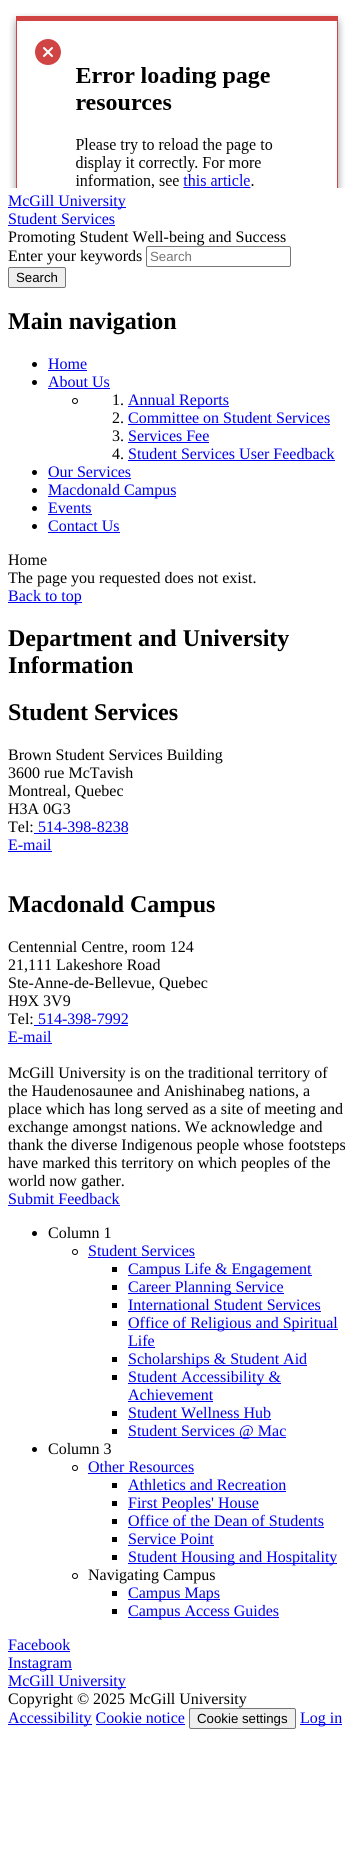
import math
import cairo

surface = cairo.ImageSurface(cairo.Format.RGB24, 354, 1858)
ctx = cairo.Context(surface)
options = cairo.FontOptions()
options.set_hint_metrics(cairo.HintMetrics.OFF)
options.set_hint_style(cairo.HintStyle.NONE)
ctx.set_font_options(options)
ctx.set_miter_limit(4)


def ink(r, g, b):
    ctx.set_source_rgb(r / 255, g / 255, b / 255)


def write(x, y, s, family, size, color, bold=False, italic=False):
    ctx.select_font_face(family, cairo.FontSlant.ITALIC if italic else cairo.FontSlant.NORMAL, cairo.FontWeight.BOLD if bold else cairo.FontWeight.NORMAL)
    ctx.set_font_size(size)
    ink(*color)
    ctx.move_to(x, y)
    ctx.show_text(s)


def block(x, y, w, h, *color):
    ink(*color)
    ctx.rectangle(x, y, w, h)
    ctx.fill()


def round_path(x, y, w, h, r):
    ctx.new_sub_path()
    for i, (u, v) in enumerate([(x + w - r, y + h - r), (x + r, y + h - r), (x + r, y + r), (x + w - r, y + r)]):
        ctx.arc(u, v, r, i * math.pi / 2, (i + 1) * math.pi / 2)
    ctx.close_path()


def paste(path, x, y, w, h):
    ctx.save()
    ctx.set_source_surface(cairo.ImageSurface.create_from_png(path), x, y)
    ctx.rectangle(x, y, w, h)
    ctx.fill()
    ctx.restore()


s1 = dict(family="Liberation Serif", size=16, color=(0, 0, 238))
s2 = dict(family="Liberation Serif", size=16, color=(0, 0, 0))
s3 = dict(family="Liberation Sans", size=13.25, color=(117, 117, 117))
s4 = dict(family="Liberation Sans", size=13.25, color=(0, 0, 0))
s5 = dict(family="Liberation Serif", size=24, color=(0, 0, 0), bold=True)

ink(255, 255, 255)
ctx.paint()
paste("pic1.png", 9, 13, 336, 175)
block(8, 207, 118, 1, 0, 0, 238)
write(8, 206, "McGill University", **s1)
write(8, 224, "Student Services", **s1)
block(8, 225, 107, 1, 0, 0, 238)
write(8, 242, "Promoting Student Well-being and Success", **s2)
write(8, 261, "Enter your keywords", **s2)
round_path(146.5, 246.5, 144, 20, 1.5)
ink(118, 118, 118)
ctx.set_line_width(1)
ctx.stroke()
write(150, 261, "Search", **s3)
ink(239, 239, 239)
round_path(8.5, 267.5, 57, 20, 1.5)
ctx.fill_preserve()
ink(118, 118, 118)
ctx.stroke()
write(16, 282, "Search", **s4)
write(8, 329, "Main navigation", **s5)
ctx.new_path()
ctx.arc(34.5, 364.5, 2.5, 0, 2 * math.pi)
ctx.fill()
write(48, 369, "Home", **s1)
block(48, 370, 39, 1, 0, 0, 238)
ink(0, 0, 0)
ctx.new_path()
ctx.arc(34.5, 382.5, 2.5, 0, 2 * math.pi)
ctx.fill()
write(48, 387, "About Us", **s1)
block(48, 388, 62, 1, 0, 0, 238)
ctx.new_path()
ctx.arc(75, 401, 2.5, 0, 2 * math.pi)
ink(0, 0, 0)
ctx.stroke()
write(112, 405, "1.", **s2)
block(128, 406, 101, 1, 0, 0, 238)
write(128, 405, "Annual Reports", **s1)
write(112, 423, "2.", **s2)
write(128, 423, "Committee on Student Services", **s1)
block(128, 424, 202, 1, 0, 0, 238)
write(112, 441, "3.", **s2)
write(128, 441, "Services Fee", **s1)
block(128, 442, 81, 1, 0, 0, 238)
write(112, 459, "4.", **s2)
write(128, 459, "Student Services User Feedback", **s1)
block(128, 460, 207, 1, 0, 0, 238)
ink(0, 0, 0)
ctx.new_path()
ctx.arc(34.5, 472.5, 2.5, 0, 2 * math.pi)
ctx.fill()
write(48, 477, "Our Services", **s1)
block(48, 478, 83, 1, 0, 0, 238)
ink(0, 0, 0)
ctx.new_path()
ctx.arc(34.5, 490.5, 2.5, 0, 2 * math.pi)
ctx.fill()
block(48, 496, 128, 1, 0, 0, 238)
write(48, 495, "Macdonald Campus", **s1)
ink(0, 0, 0)
ctx.new_path()
ctx.arc(34.5, 508.5, 2.5, 0, 2 * math.pi)
ctx.fill()
write(48, 513, "Events", **s1)
block(48, 514, 44, 1, 0, 0, 238)
ink(0, 0, 0)
ctx.new_path()
ctx.arc(34.5, 526.5, 2.5, 0, 2 * math.pi)
ctx.fill()
write(48, 531, "Contact Us", **s1)
block(48, 532, 72, 1, 0, 0, 238)
write(8, 565, "Home", **s2)
write(8, 583, "The page you requested does not exist.", **s2)
block(8, 602, 74, 1, 0, 0, 238)
write(8, 601, "Back to top", **s1)
write(8, 646, "Department and University", **s5)
write(8, 673, "Information", **s5)
write(8, 720, "Student Services", **s5)
write(8, 760, "Brown Student Services Building", **s2)
write(8, 778, "3600 rue McTavish", **s2)
write(8, 796, "Montreal, Quebec", **s2)
write(8, 814, "H3A 0G3", **s2)
write(8, 832, "Tel:", **s2)
write(38, 832, "514-398-8238", **s1)
block(34, 833, 94, 1, 0, 0, 238)
write(8, 850, "E-mail", **s1)
block(8, 851, 44, 1, 0, 0, 238)
write(8, 912, "Macdonald Campus", **s5)
write(8, 952, "Centennial Centre, room 124", **s2)
write(8, 970, "21,111 Lakeshore Road", **s2)
write(8, 988, "Ste-Anne-de-Bellevue, Quebec", **s2)
write(8, 1006, "H9X 3V9", **s2)
write(8, 1024, "Tel:", **s2)
write(38, 1024, "514-398-7992", **s1)
block(34, 1025, 94, 1, 0, 0, 238)
write(8, 1042, "E-mail", **s1)
block(8, 1043, 44, 1, 0, 0, 238)
write(8, 1078, "McGill University is on the traditional territory of", **s2)
write(8, 1096, "the Haudenosaunee and Anishinabeg nations, a", **s2)
write(8, 1114, "place which has long served as a site of meeting and", **s2)
write(8, 1132, "exchange amongst nations. We acknowledge and", **s2)
write(8, 1150, "thank the diverse Indigenous people whose footsteps", **s2)
write(8, 1168, "have marked this territory on which peoples of the", **s2)
write(8, 1186, "world now gather.", **s2)
write(8, 1204, "Submit Feedback", **s1)
block(8, 1205, 112, 1, 0, 0, 238)
ink(0, 0, 0)
ctx.new_path()
ctx.arc(34.5, 1233.5, 2.5, 0, 2 * math.pi)
ctx.fill()
write(48, 1238, "Column 1", **s2)
ctx.new_path()
ctx.arc(75, 1252, 2.5, 0, 2 * math.pi)
ctx.stroke()
write(88, 1256, "Student Services", **s1)
block(88, 1257, 107, 1, 0, 0, 238)
block(112, 1267, 5, 5, 0, 0, 0)
block(128, 1275, 184, 1, 0, 0, 238)
write(128, 1274, "Campus Life & Engagement", **s1)
block(112, 1285, 5, 5, 0, 0, 0)
block(128, 1293, 156, 1, 0, 0, 238)
write(128, 1292, "Career Planning Service", **s1)
block(112, 1303, 5, 5, 0, 0, 0)
write(128, 1310, "International Student Services", **s1)
block(128, 1311, 193, 1, 0, 0, 238)
block(112, 1321, 5, 5, 0, 0, 0)
block(128, 1329, 210, 1, 0, 0, 238)
write(128, 1328, "Office of Religious and Spiritual", **s1)
write(128, 1346, "Life", **s1)
block(128, 1347, 27, 1, 0, 0, 238)
block(112, 1357, 5, 5, 0, 0, 0)
block(128, 1365, 179, 1, 0, 0, 238)
write(128, 1364, "Scholarships & Student Aid", **s1)
block(112, 1375, 5, 5, 0, 0, 0)
block(128, 1383, 153, 1, 0, 0, 238)
write(128, 1382, "Student Accessibility &", **s1)
write(128, 1400, "Achievement", **s1)
block(128, 1401, 85, 1, 0, 0, 238)
block(112, 1411, 5, 5, 0, 0, 0)
write(128, 1418, "Student Wellness Hub", **s1)
block(128, 1419, 143, 1, 0, 0, 238)
block(112, 1429, 5, 5, 0, 0, 0)
block(128, 1437, 158, 1, 0, 0, 238)
write(128, 1436, "Student Services @ Mac", **s1)
ink(0, 0, 0)
ctx.new_path()
ctx.arc(34.5, 1449.5, 2.5, 0, 2 * math.pi)
ctx.fill()
write(48, 1454, "Column 3", **s2)
ctx.new_path()
ctx.arc(75, 1468, 2.5, 0, 2 * math.pi)
ctx.stroke()
write(88, 1472, "Other Resources", **s1)
block(88, 1473, 106, 1, 0, 0, 238)
block(112, 1483, 5, 5, 0, 0, 0)
write(128, 1490, "Athletics and Recreation", **s1)
block(128, 1491, 158, 1, 0, 0, 238)
block(112, 1501, 5, 5, 0, 0, 0)
block(128, 1509, 131, 1, 0, 0, 238)
write(128, 1508, "First Peoples' House", **s1)
block(112, 1519, 5, 5, 0, 0, 0)
write(128, 1526, "Office of the Dean of Students", **s1)
block(128, 1527, 196, 1, 0, 0, 238)
block(112, 1537, 5, 5, 0, 0, 0)
write(128, 1544, "Service Point", **s1)
block(128, 1545, 86, 1, 0, 0, 238)
block(112, 1555, 5, 5, 0, 0, 0)
block(128, 1563, 209, 1, 0, 0, 238)
write(128, 1562, "Student Housing and Hospitality", **s1)
ctx.new_path()
ctx.arc(75, 1576, 2.5, 0, 2 * math.pi)
ink(0, 0, 0)
ctx.stroke()
write(88, 1580, "Navigating Campus", **s2)
block(112, 1591, 5, 5, 0, 0, 0)
block(128, 1599, 92, 1, 0, 0, 238)
write(128, 1598, "Campus Maps", **s1)
block(112, 1609, 5, 5, 0, 0, 0)
block(128, 1617, 151, 1, 0, 0, 238)
write(128, 1616, "Campus Access Guides", **s1)
write(8, 1650, "Facebook", **s1)
block(8, 1651, 62, 1, 0, 0, 238)
block(8, 1669, 64, 1, 0, 0, 238)
write(8, 1668, "Instagram", **s1)
block(8, 1687, 118, 1, 0, 0, 238)
write(8, 1686, "McGill University", **s1)
write(8, 1704, "Copyright © 2025 McGill University", **s2)
block(8, 1724, 84, 1, 0, 0, 238)
write(8, 1723, "Accessibility Cookie notice", **s1)
ink(239, 239, 239)
round_path(189.5, 1708.5, 106, 20, 1.5)
ctx.fill_preserve()
ink(118, 118, 118)
ctx.stroke()
write(197, 1723, "Cookie settings", **s4)
block(300, 1724, 42, 1, 0, 0, 238)
write(300, 1723, "Log in", **s1)
block(96, 1724, 89, 1, 0, 0, 238)
surface.write_to_png("screenshot.png")
